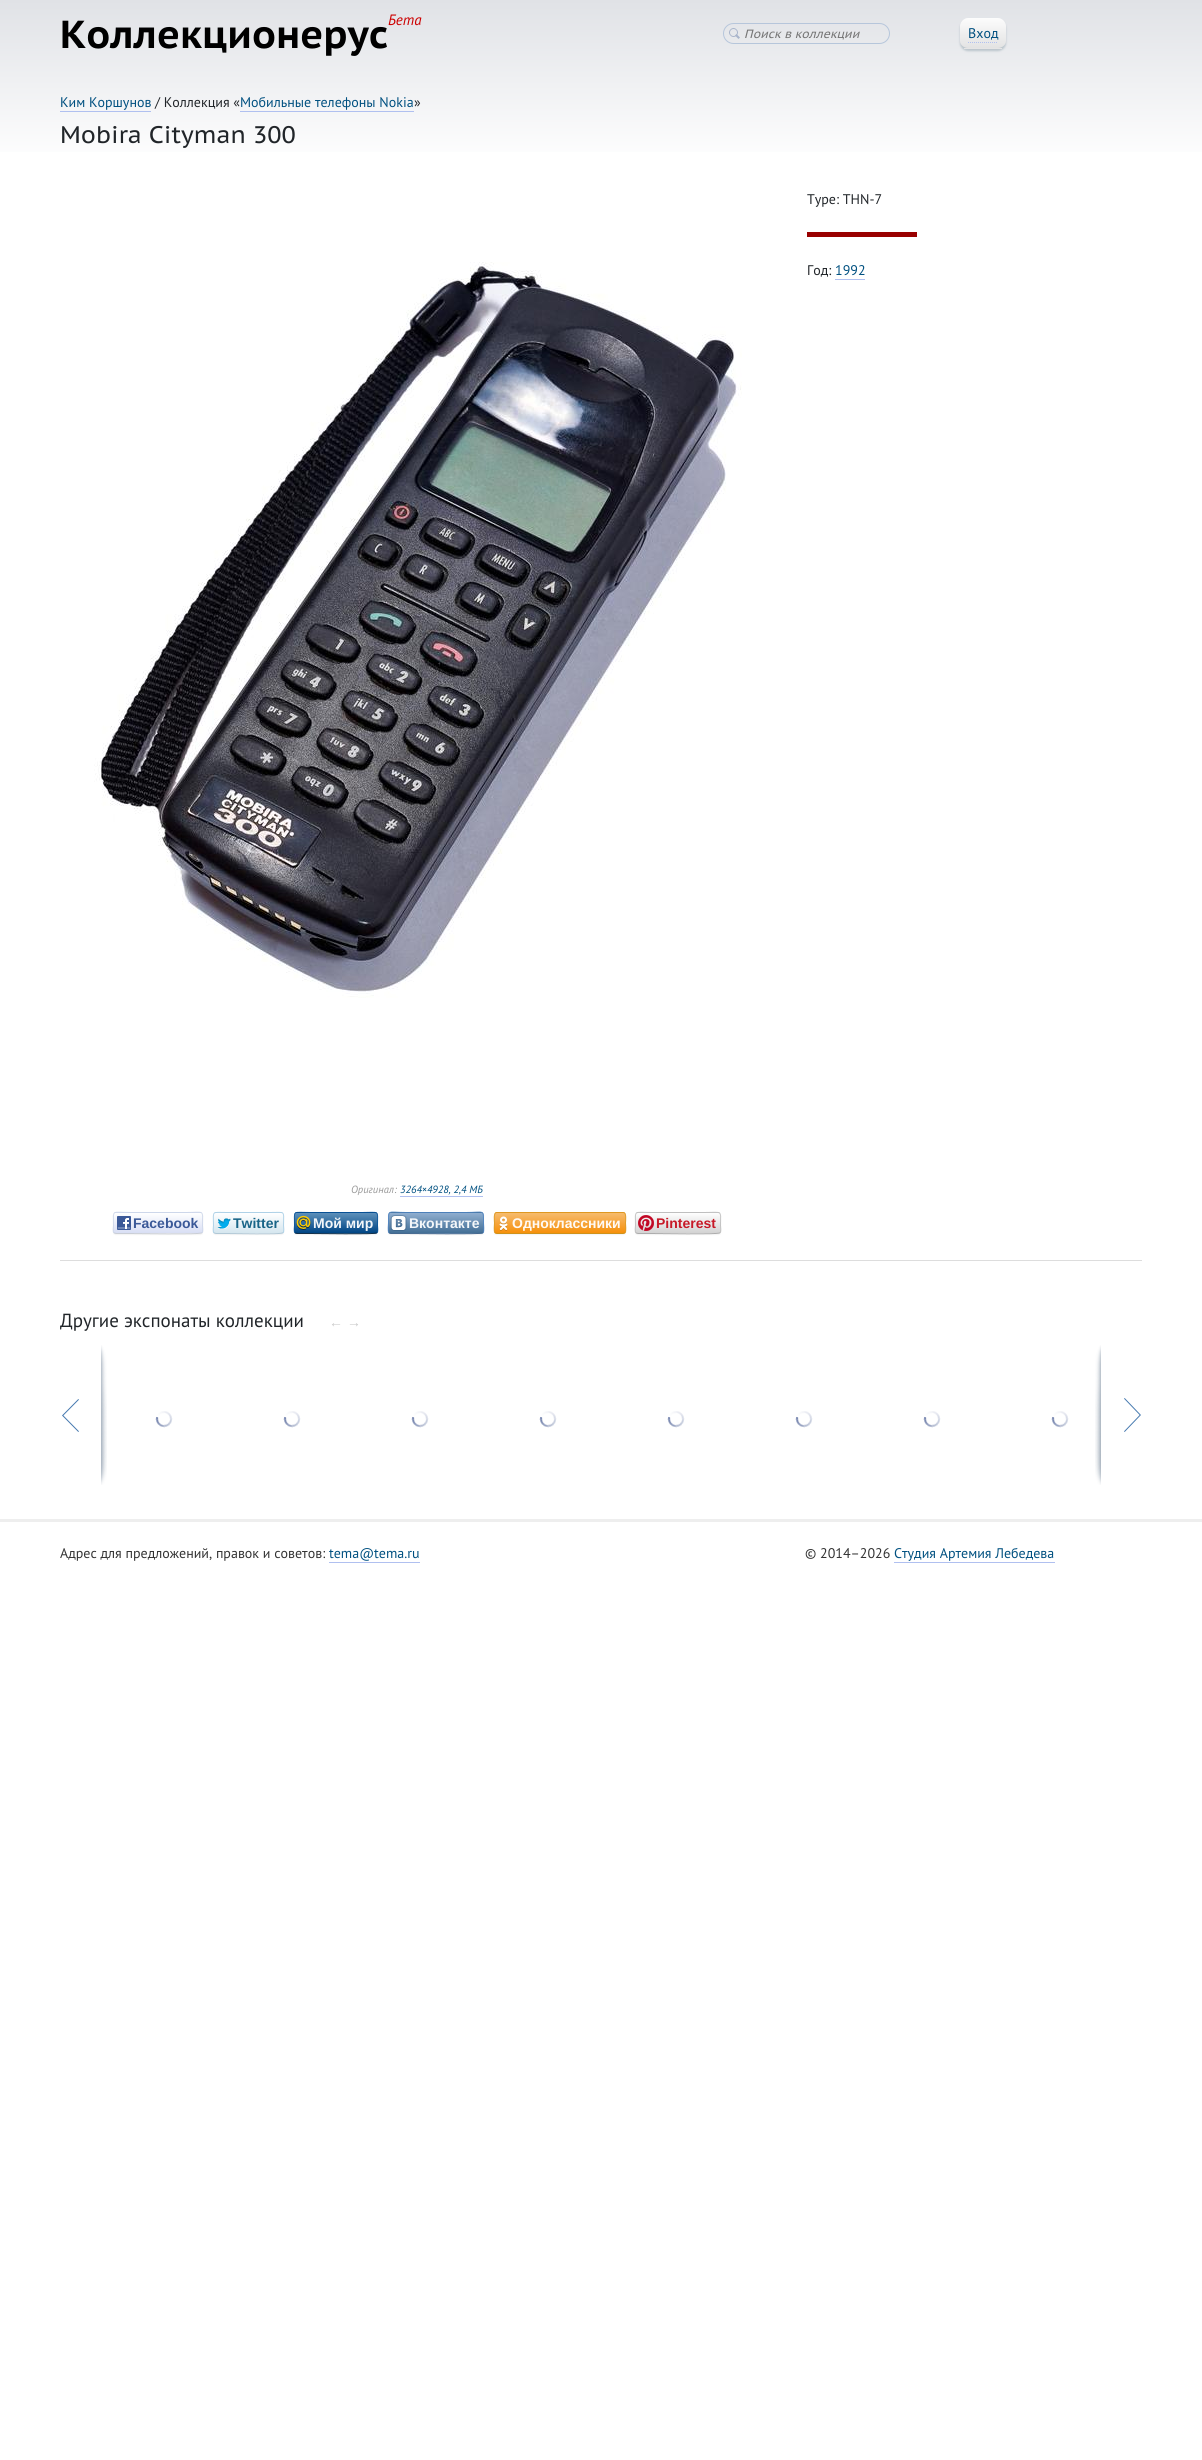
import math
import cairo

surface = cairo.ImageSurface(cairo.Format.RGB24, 1202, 2460)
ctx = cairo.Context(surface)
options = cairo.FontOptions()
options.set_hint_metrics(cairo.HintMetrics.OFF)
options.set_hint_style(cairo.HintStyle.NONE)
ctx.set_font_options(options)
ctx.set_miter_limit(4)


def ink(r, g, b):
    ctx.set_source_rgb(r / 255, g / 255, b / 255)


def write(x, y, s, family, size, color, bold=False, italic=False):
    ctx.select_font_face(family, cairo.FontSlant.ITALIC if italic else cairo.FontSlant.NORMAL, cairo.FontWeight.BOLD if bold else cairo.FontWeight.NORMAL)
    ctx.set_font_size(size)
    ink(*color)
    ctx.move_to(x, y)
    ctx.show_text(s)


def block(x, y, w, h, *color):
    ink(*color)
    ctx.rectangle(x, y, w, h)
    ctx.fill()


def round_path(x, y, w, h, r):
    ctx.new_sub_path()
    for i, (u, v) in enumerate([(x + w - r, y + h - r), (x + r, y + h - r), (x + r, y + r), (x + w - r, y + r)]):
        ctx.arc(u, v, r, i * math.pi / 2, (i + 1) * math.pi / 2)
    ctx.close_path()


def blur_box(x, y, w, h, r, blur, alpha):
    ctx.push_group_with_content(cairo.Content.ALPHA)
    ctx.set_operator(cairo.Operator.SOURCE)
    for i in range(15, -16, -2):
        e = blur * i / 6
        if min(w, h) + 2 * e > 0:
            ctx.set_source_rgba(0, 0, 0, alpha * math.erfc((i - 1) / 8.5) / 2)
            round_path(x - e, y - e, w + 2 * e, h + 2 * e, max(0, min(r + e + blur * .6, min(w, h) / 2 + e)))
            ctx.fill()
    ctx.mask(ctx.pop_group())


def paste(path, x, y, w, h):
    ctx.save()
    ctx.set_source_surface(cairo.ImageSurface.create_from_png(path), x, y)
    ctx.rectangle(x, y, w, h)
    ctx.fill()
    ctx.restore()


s1 = dict(family="PT Sans Caption", size=39, color=(0, 0, 0), bold=True)
s2 = dict(family="PT Sans", size=15, color=(204, 0, 0), italic=True)
s3 = dict(family="PT Sans Caption", size=12, color=(117, 117, 117), italic=True)
s4 = dict(family="PT Sans", size=14, color=(0, 80, 128))
s5 = dict(family="PT Sans", size=14, color=(33, 37, 41))
s6 = dict(family="PT Sans Caption", size=24, color=(33, 37, 41))
s7 = dict(family="PT Sans", size=10.5, color=(153, 153, 153), italic=True)
s8 = dict(family="PT Sans", size=10.5, color=(0, 80, 128), italic=True)
s9 = dict(family="Liberation Sans", size=14, color=(59, 89, 152), bold=True)
s10 = dict(family="Liberation Sans", size=14, color=(24, 100, 135), bold=True)
s11 = dict(family="Liberation Sans", size=14, color=(244, 247, 250), bold=True)
s12 = dict(family="Liberation Sans", size=14, color=(255, 250, 245), bold=True)
s13 = dict(family="Liberation Sans", size=14, color=(199, 26, 40), bold=True)
s14 = dict(family="PT Sans", size=19, color=(33, 37, 41))
s15 = dict(family="Liberation Sans", size=14, color=(204, 204, 204), italic=True)
s16 = dict(family="PT Sans", size=14, color=(51, 51, 51))

ink(255, 255, 255)
ctx.paint()
gradient = cairo.LinearGradient(601, 0, 601, 165)
gradient.add_color_stop_rgba(0, 0.878, 0.886, 0.902, 1)
gradient.add_color_stop_rgba(1, 1, 1, 1, 1)
ctx.set_source(gradient)
ctx.rectangle(0, 0, 1202, 152)
ctx.fill()
write(60, 48, "Коллекционерус", **s1)
write(388, 25, "Бета", **s2)
paste("pic1.png", 729, 28, 11, 11)
round_path(723.5, 23.5, 166, 20, 10)
ink(182, 198, 219)
ctx.set_line_width(1)
ctx.stroke()
write(744, 38, "Поиск в коллекции", **s3)
ink(187, 197, 204)
blur_box(960, 20, 46, 31, 8, 1, 1)
gradient = cairo.LinearGradient(983, 18, 983, 48)
gradient.add_color_stop_rgba(0, 0.988, 0.988, 0.988, 1)
gradient.add_color_stop_rgba(1, 0.89, 0.89, 0.89, 1)
ctx.set_source(gradient)
ctx.new_path()
ctx.move_to(968, 18)
ctx.line_to(998, 18)
ctx.curve_to(1002, 18, 1006, 22, 1006, 26)
ctx.line_to(1006, 41)
ctx.curve_to(1006, 45, 1002, 48, 998, 48)
ctx.line_to(968, 48)
ctx.curve_to(964, 48, 960, 45, 960, 41)
ctx.line_to(960, 26)
ctx.curve_to(960, 22, 964, 18, 968, 18)
ctx.close_path()
ctx.fill()
block(964, 48, 38, 1, 229, 229, 229)
write(968, 38, "Вход", **s4)
ctx.new_path()
ctx.move_to(968, 42.5)
ctx.line_to(998, 42.5)
ink(176, 192, 240)
ctx.set_dash([1, 1])
ctx.stroke()
write(60, 107, "Ким Коршунов", **s4)
block(60, 111, 91, 1, 176, 192, 240)
write(155, 107, "/ Коллекция «", **s5)
write(240, 107, "Мобильные телефоны Nokia", **s4)
block(240, 111, 174, 1, 176, 192, 240)
write(414, 107, "»", **s5)
write(60, 143, "Mobira Cityman 300", **s6)
write(807, 204, "Type: THN-7", **s5)
block(807, 232, 110, 5, 153, 0, 0)
write(807, 275, "Год:", **s5)
write(835, 275, "1992", **s4)
block(835, 279, 30, 1, 176, 192, 240)
paste("pic2.png", 94, 262, 648, 736)
write(351, 1193, "Оригинал:", **s7)
write(400, 1193, "3264×4928, 2,4 МБ", **s8)
block(400, 1196, 83, 1, 176, 192, 240)
ink(0, 0, 0)
blur_box(113, 1213, 90, 22, 3, 0.5, 0.05)
ctx.save()
round_path(113, 1212, 90, 22, 3)
ctx.clip()
gradient = cairo.LinearGradient(158, 1193, 158, 1213)
gradient.add_color_stop_rgba(0, 1, 1, 1, 1)
gradient.add_color_stop_rgba(1, 0.847, 0.871, 0.957, 1)
ctx.set_source(gradient)
ctx.rectangle(113, 1212, 90, 1)
ctx.fill()
gradient = cairo.LinearGradient(158, 1213, 158, 1233)
gradient.add_color_stop_rgba(0, 1, 1, 1, 1)
gradient.add_color_stop_rgba(1, 0.847, 0.871, 0.957, 1)
ctx.set_source(gradient)
ctx.rectangle(113, 1213, 90, 20)
ctx.fill()
gradient = cairo.LinearGradient(158, 1233, 158, 1253)
gradient.add_color_stop_rgba(0, 1, 1, 1, 1)
gradient.add_color_stop_rgba(1, 0.847, 0.871, 0.957, 1)
ctx.set_source(gradient)
ctx.rectangle(113, 1233, 90, 1)
ctx.fill()
ctx.restore()
ctx.new_path()
ctx.move_to(202, 1233)
ctx.line_to(201.5, 1233)
ctx.curve_to(199.5, 1234.5, 137.5, 1233.5, 130, 1233.5)
ctx.line_to(116, 1233.5)
ctx.line_to(114, 1233)
ctx.set_source_rgba(0.741, 0.761, 0.796, 0.8)
ctx.set_dash([])
ctx.stroke()
ctx.new_path()
ctx.move_to(114, 1233)
ctx.curve_to(112.5, 1231, 113.5, 1227.5, 113.5, 1225.5)
ctx.curve_to(113.5, 1209, 111, 1212.5, 130, 1212.5)
ctx.line_to(186, 1212.5)
ctx.curve_to(205, 1212.5, 202.5, 1209, 202.5, 1225.5)
ctx.curve_to(202.5, 1227.5, 203.5, 1231, 202, 1233)
ctx.set_source_rgba(0.792, 0.831, 0.906, 0.8)
ctx.stroke()
paste("pic3.png", 117, 1216, 14, 14)
write(133, 1228, "Facebook", **s9)
ink(0, 0, 0)
blur_box(213, 1213, 71, 22, 3, 0.5, 0.05)
ctx.save()
round_path(213, 1212, 71, 22, 3)
ctx.clip()
gradient = cairo.LinearGradient(249, 1193, 249, 1213)
gradient.add_color_stop_rgba(0, 1, 1, 1, 1)
gradient.add_color_stop_rgba(1, 0.835, 0.902, 0.937, 1)
ctx.set_source(gradient)
ctx.rectangle(213, 1212, 71, 1)
ctx.fill()
gradient = cairo.LinearGradient(249, 1213, 249, 1233)
gradient.add_color_stop_rgba(0, 1, 1, 1, 1)
gradient.add_color_stop_rgba(1, 0.835, 0.902, 0.937, 1)
ctx.set_source(gradient)
ctx.rectangle(213, 1213, 71, 20)
ctx.fill()
gradient = cairo.LinearGradient(249, 1233, 249, 1253)
gradient.add_color_stop_rgba(0, 1, 1, 1, 1)
gradient.add_color_stop_rgba(1, 0.835, 0.902, 0.937, 1)
ctx.set_source(gradient)
ctx.rectangle(213, 1233, 71, 1)
ctx.fill()
ctx.restore()
ctx.new_path()
ctx.move_to(283, 1233)
ctx.line_to(282.5, 1233)
ctx.curve_to(280.5, 1234.5, 233, 1233.5, 227, 1233.5)
ctx.line_to(216, 1233.5)
ctx.line_to(214, 1233)
ctx.set_source_rgba(0.62, 0.729, 0.8, 0.8)
ctx.stroke()
ctx.new_path()
ctx.move_to(214, 1233)
ctx.curve_to(212.5, 1231, 213.5, 1227.5, 213.5, 1225.5)
ctx.curve_to(213.5, 1210, 211, 1212.5, 227, 1212.5)
ctx.line_to(270, 1212.5)
ctx.curve_to(286, 1212.5, 283.5, 1210, 283.5, 1225.5)
ctx.curve_to(283.5, 1227.5, 284.5, 1231, 283, 1233)
ctx.set_source_rgba(0.643, 0.8, 0.898, 0.8)
ctx.stroke()
paste("pic4.png", 217, 1218, 14, 11)
write(233, 1228, "Twitter", **s10)
ink(0, 0, 0)
blur_box(294, 1213, 84, 22, 3, 0.5, 0.05)
ctx.save()
round_path(294, 1212, 84, 22, 3)
ctx.clip()
gradient = cairo.LinearGradient(336, 1193, 336, 1213)
gradient.add_color_stop_rgba(0, 0.365, 0.565, 0.729, 1)
gradient.add_color_stop_rgba(1, 0, 0.271, 0.518, 1)
ctx.set_source(gradient)
ctx.rectangle(294, 1212, 84, 1)
ctx.fill()
gradient = cairo.LinearGradient(336, 1213, 336, 1233)
gradient.add_color_stop_rgba(0, 0.365, 0.565, 0.729, 1)
gradient.add_color_stop_rgba(1, 0, 0.271, 0.518, 1)
ctx.set_source(gradient)
ctx.rectangle(294, 1213, 84, 20)
ctx.fill()
gradient = cairo.LinearGradient(336, 1233, 336, 1253)
gradient.add_color_stop_rgba(0, 0.365, 0.565, 0.729, 1)
gradient.add_color_stop_rgba(1, 0, 0.271, 0.518, 1)
ctx.set_source(gradient)
ctx.rectangle(294, 1233, 84, 1)
ctx.fill()
ctx.restore()
ctx.new_path()
ctx.move_to(377, 1233)
ctx.line_to(376.5, 1233)
ctx.curve_to(374.5, 1234.5, 317, 1233.5, 310, 1233.5)
ctx.line_to(297, 1233.5)
ctx.line_to(295, 1233)
ctx.set_source_rgba(0.012, 0.106, 0.188, 0.8)
ctx.stroke()
ctx.new_path()
ctx.move_to(295, 1233)
ctx.curve_to(293.5, 1231, 294.5, 1227.5, 294.5, 1225.5)
ctx.curve_to(294.5, 1209.5, 292, 1212.5, 310, 1212.5)
ctx.line_to(362, 1212.5)
ctx.curve_to(380, 1212.5, 377.5, 1209.5, 377.5, 1225.5)
ctx.curve_to(377.5, 1227.5, 378.5, 1231, 377, 1233)
ctx.set_source_rgba(0.043, 0.329, 0.6, 0.8)
ctx.stroke()
paste("pic5.png", 296, 1215, 15, 15)
write(313, 1228, "Мой мир", **s11)
ink(0, 0, 0)
blur_box(388, 1213, 96, 22, 3, 0.5, 0.05)
ctx.save()
round_path(388, 1212, 96, 22, 3)
ctx.clip()
gradient = cairo.LinearGradient(436, 1193, 436, 1213)
gradient.add_color_stop_rgba(0, 0.561, 0.682, 0.812, 1)
gradient.add_color_stop_rgba(1, 0.263, 0.435, 0.588, 1)
ctx.set_source(gradient)
ctx.rectangle(388, 1212, 96, 1)
ctx.fill()
gradient = cairo.LinearGradient(436, 1213, 436, 1233)
gradient.add_color_stop_rgba(0, 0.561, 0.682, 0.812, 1)
gradient.add_color_stop_rgba(1, 0.263, 0.435, 0.588, 1)
ctx.set_source(gradient)
ctx.rectangle(388, 1213, 96, 20)
ctx.fill()
gradient = cairo.LinearGradient(436, 1233, 436, 1253)
gradient.add_color_stop_rgba(0, 0.561, 0.682, 0.812, 1)
gradient.add_color_stop_rgba(1, 0.263, 0.435, 0.588, 1)
ctx.set_source(gradient)
ctx.rectangle(388, 1233, 96, 1)
ctx.fill()
ctx.restore()
ctx.new_path()
ctx.move_to(483, 1233)
ctx.line_to(482.5, 1233)
ctx.curve_to(480.5, 1234.5, 414, 1233.5, 406, 1233.5)
ctx.line_to(391, 1233.5)
ctx.line_to(389, 1233)
ctx.set_source_rgba(0.204, 0.345, 0.498, 0.8)
ctx.stroke()
ctx.new_path()
ctx.move_to(389, 1233)
ctx.curve_to(387.5, 1231, 388.5, 1225, 388.5, 1223)
ctx.curve_to(388.5, 1208.5, 388, 1212.5, 406, 1212.5)
ctx.line_to(466, 1212.5)
ctx.curve_to(484, 1212.5, 483.5, 1208.5, 483.5, 1223)
ctx.curve_to(483.5, 1225, 484.5, 1231, 483, 1233)
ctx.set_source_rgba(0.306, 0.514, 0.757, 0.8)
ctx.stroke()
paste("pic6.png", 390, 1215, 17, 16)
write(409, 1228, "Вконтакте", **s11)
ink(0, 0, 0)
blur_box(494, 1213, 132, 22, 3, 0.5, 0.05)
ctx.save()
round_path(494, 1212, 132, 22, 3)
ctx.clip()
gradient = cairo.LinearGradient(560, 1193, 560, 1213)
gradient.add_color_stop_rgba(0, 0.965, 0.733, 0.427, 1)
gradient.add_color_stop_rgba(1, 0.965, 0.565, 0.043, 1)
ctx.set_source(gradient)
ctx.rectangle(494, 1212, 132, 1)
ctx.fill()
gradient = cairo.LinearGradient(560, 1213, 560, 1233)
gradient.add_color_stop_rgba(0, 0.965, 0.733, 0.427, 1)
gradient.add_color_stop_rgba(1, 0.965, 0.565, 0.043, 1)
ctx.set_source(gradient)
ctx.rectangle(494, 1213, 132, 20)
ctx.fill()
gradient = cairo.LinearGradient(560, 1233, 560, 1253)
gradient.add_color_stop_rgba(0, 0.965, 0.733, 0.427, 1)
gradient.add_color_stop_rgba(1, 0.965, 0.565, 0.043, 1)
ctx.set_source(gradient)
ctx.rectangle(494, 1233, 132, 1)
ctx.fill()
ctx.restore()
ctx.new_path()
ctx.move_to(625, 1233)
ctx.line_to(623, 1233.5)
ctx.line_to(497, 1233.5)
ctx.line_to(495, 1233)
ctx.set_source_rgba(0.773, 0.537, 0.027, 0.8)
ctx.stroke()
ctx.new_path()
ctx.move_to(495, 1233)
ctx.curve_to(493.5, 1231, 494.5, 1225, 494.5, 1223)
ctx.curve_to(494.5, 1221, 493, 1212.5, 497, 1212.5)
ctx.line_to(623, 1212.5)
ctx.curve_to(627, 1212.5, 625.5, 1221, 625.5, 1223)
ctx.curve_to(625.5, 1225, 626.5, 1231, 625, 1233)
ctx.set_source_rgba(0.851, 0.604, 0.149, 0.8)
ctx.stroke()
paste("pic7.png", 499, 1216, 9, 15)
write(512, 1228, "Одноклассники", **s12)
ink(0, 0, 0)
blur_box(635, 1213, 86, 22, 3, 0.5, 0.05)
ctx.save()
round_path(635, 1212, 86, 22, 3)
ctx.clip()
gradient = cairo.LinearGradient(678, 1193, 678, 1213)
gradient.add_color_stop_rgba(0, 0.996, 0.996, 0.996, 1)
gradient.add_color_stop_rgba(1, 0.827, 0.827, 0.827, 1)
ctx.set_source(gradient)
ctx.rectangle(635, 1212, 86, 1)
ctx.fill()
gradient = cairo.LinearGradient(678, 1213, 678, 1233)
gradient.add_color_stop_rgba(0, 0.996, 0.996, 0.996, 1)
gradient.add_color_stop_rgba(1, 0.827, 0.827, 0.827, 1)
ctx.set_source(gradient)
ctx.rectangle(635, 1213, 86, 20)
ctx.fill()
gradient = cairo.LinearGradient(678, 1233, 678, 1253)
gradient.add_color_stop_rgba(0, 0.996, 0.996, 0.996, 1)
gradient.add_color_stop_rgba(1, 0.827, 0.827, 0.827, 1)
ctx.set_source(gradient)
ctx.rectangle(635, 1233, 86, 1)
ctx.fill()
ctx.restore()
ctx.new_path()
ctx.move_to(720, 1233)
ctx.line_to(719.5, 1233)
ctx.curve_to(717.5, 1234.5, 658.5, 1233.5, 651.5, 1233.5)
ctx.line_to(638, 1233.5)
ctx.line_to(636, 1233)
ink(173, 173, 173)
ctx.stroke()
ctx.new_path()
ctx.move_to(636, 1233)
ctx.curve_to(634.5, 1231, 635.5, 1227.5, 635.5, 1225.5)
ctx.curve_to(635.5, 1209.5, 633, 1212.5, 651.5, 1212.5)
ctx.line_to(704.5, 1212.5)
ctx.curve_to(723, 1212.5, 720.5, 1209.5, 720.5, 1225.5)
ctx.curve_to(720.5, 1227.5, 721.5, 1231, 720, 1233)
ctx.set_source_rgba(0.729, 0.729, 0.729, 0.8)
ctx.stroke()
paste("pic8.png", 638, 1215, 16, 16)
write(656, 1228, "Pinterest", **s13)
block(60, 1260, 1082, 1, 221, 221, 221)
write(60, 1327, "Другие экспонаты коллекции", **s14)
write(329, 1327, "← →", **s15)
paste("pic9.png", 62, 1345, 45, 140)
paste("pic10.png", 155, 1411, 18, 17)
paste("pic10.png", 283, 1411, 18, 17)
paste("pic10.png", 411, 1411, 18, 17)
paste("pic10.png", 539, 1411, 18, 17)
paste("pic10.png", 667, 1411, 18, 17)
paste("pic10.png", 795, 1411, 18, 17)
paste("pic10.png", 923, 1411, 18, 17)
paste("pic10.png", 1051, 1411, 18, 17)
paste("pic11.png", 1095, 1345, 46, 140)
block(0, 1519, 1202, 3, 238, 238, 238)
write(60, 1558, "Адрес для предложений, правок и советов:", **s16)
write(329, 1558, "tema@tema.ru", **s4)
block(329, 1562, 91, 1, 176, 192, 240)
write(805, 1558, "© 2014–2026", **s16)
write(894, 1558, "Студия Артемия Лебедева", **s4)
block(894, 1562, 161, 1, 176, 192, 240)
surface.write_to_png("screenshot.png")
